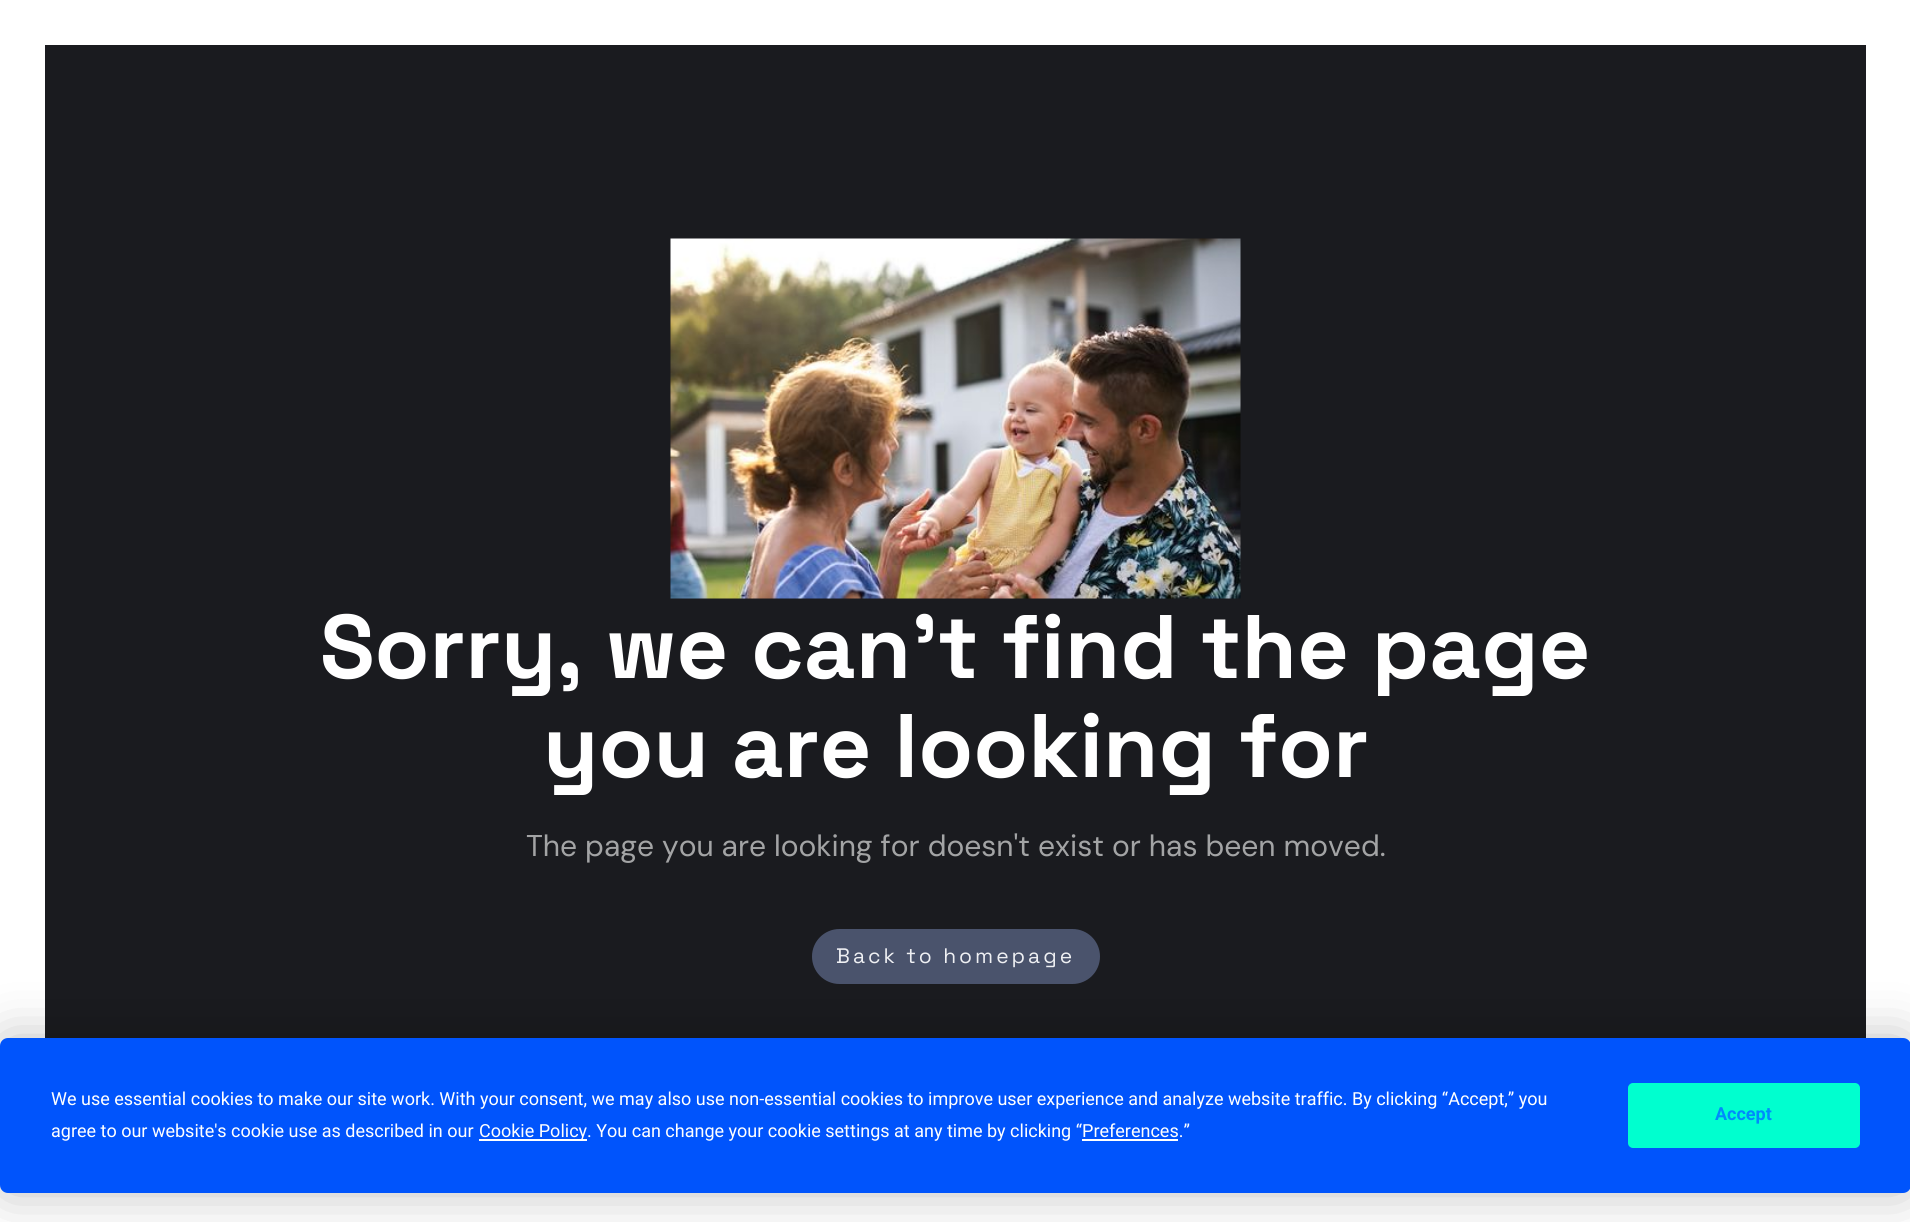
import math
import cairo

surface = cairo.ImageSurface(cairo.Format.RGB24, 1910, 1222)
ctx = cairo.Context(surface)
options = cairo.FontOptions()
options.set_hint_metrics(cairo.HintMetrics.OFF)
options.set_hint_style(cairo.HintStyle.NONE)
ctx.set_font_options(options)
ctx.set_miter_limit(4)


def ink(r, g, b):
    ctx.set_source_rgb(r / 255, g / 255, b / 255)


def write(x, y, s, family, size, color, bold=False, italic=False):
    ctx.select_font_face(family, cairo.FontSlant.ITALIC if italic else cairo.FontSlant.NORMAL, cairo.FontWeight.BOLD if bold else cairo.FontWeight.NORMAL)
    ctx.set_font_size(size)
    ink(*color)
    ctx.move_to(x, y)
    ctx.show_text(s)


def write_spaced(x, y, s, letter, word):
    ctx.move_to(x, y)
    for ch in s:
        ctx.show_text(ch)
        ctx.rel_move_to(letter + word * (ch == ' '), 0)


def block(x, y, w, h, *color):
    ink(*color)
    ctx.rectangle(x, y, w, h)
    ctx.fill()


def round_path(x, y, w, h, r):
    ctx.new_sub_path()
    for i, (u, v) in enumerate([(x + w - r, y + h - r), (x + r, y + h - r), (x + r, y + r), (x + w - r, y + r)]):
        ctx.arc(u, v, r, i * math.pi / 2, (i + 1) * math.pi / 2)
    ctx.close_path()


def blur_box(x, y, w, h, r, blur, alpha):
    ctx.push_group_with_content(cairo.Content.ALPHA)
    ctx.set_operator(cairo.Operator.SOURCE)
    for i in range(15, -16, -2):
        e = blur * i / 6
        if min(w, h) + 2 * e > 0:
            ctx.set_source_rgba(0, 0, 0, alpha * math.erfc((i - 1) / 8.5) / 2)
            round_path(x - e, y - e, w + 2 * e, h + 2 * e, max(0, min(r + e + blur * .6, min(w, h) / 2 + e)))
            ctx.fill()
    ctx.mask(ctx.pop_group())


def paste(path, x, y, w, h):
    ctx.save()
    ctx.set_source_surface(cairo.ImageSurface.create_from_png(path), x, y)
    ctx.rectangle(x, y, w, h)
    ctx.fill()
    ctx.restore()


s1 = dict(family="Space Grotesk", size=90, color=(255, 255, 255), bold=True)
s2 = dict(family="DM Sans", size=30, color=(163, 164, 165))
s3 = dict(family="Roboto", size=18, color=(255, 255, 255))
s4 = dict(family="Roboto", size=18, color=(0, 138, 252), bold=True)

ink(255, 255, 255)
ctx.paint()
block(45, 45, 1821, 993, 26, 27, 31)
paste("pic1.png", 670, 238, 571, 361)
write(320, 678, "Sorry, we can't find the page", **s1)
write(543, 777, "you are looking for", **s1)
write(526, 856, "The page you are looking for doesn't exist or has been moved.", **s2)
ink(74, 83, 108)
round_path(812, 929, 288, 55, 27.5)
ctx.fill()
ctx.select_font_face("Space Grotesk")
ctx.set_font_size(21)
ink(239, 240, 243)
write_spaced(836, 963, "Back to homepage", 3, 0)
ink(0, 0, 0)
blur_box(0, 1038, 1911, 155, 8, 26, 0.25)
ink(0, 84, 252)
round_path(0, 1038, 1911, 155, 8)
ctx.fill()
write(51, 1105, "We use essential cookies to make our site work. With your consent, we may also use non-essential cookies to improve user experience and analyze website traffic. By clicking “Accept,” you", **s3)
write(51, 1137, "agree to our website's cookie use as described in our", **s3)
block(479, 1139, 108, 2, 255, 255, 255)
write(479, 1137, "Cookie Policy. You can change your cookie settings at any time by clicking “Preferences.”", **s3)
block(1082, 1139, 96, 2, 255, 255, 255)
ink(0, 255, 207)
round_path(1629, 1084, 230, 63, 4)
ctx.fill_preserve()
ctx.stroke()
write(1715, 1120, "Accept", **s4)
surface.write_to_png("screenshot.png")
